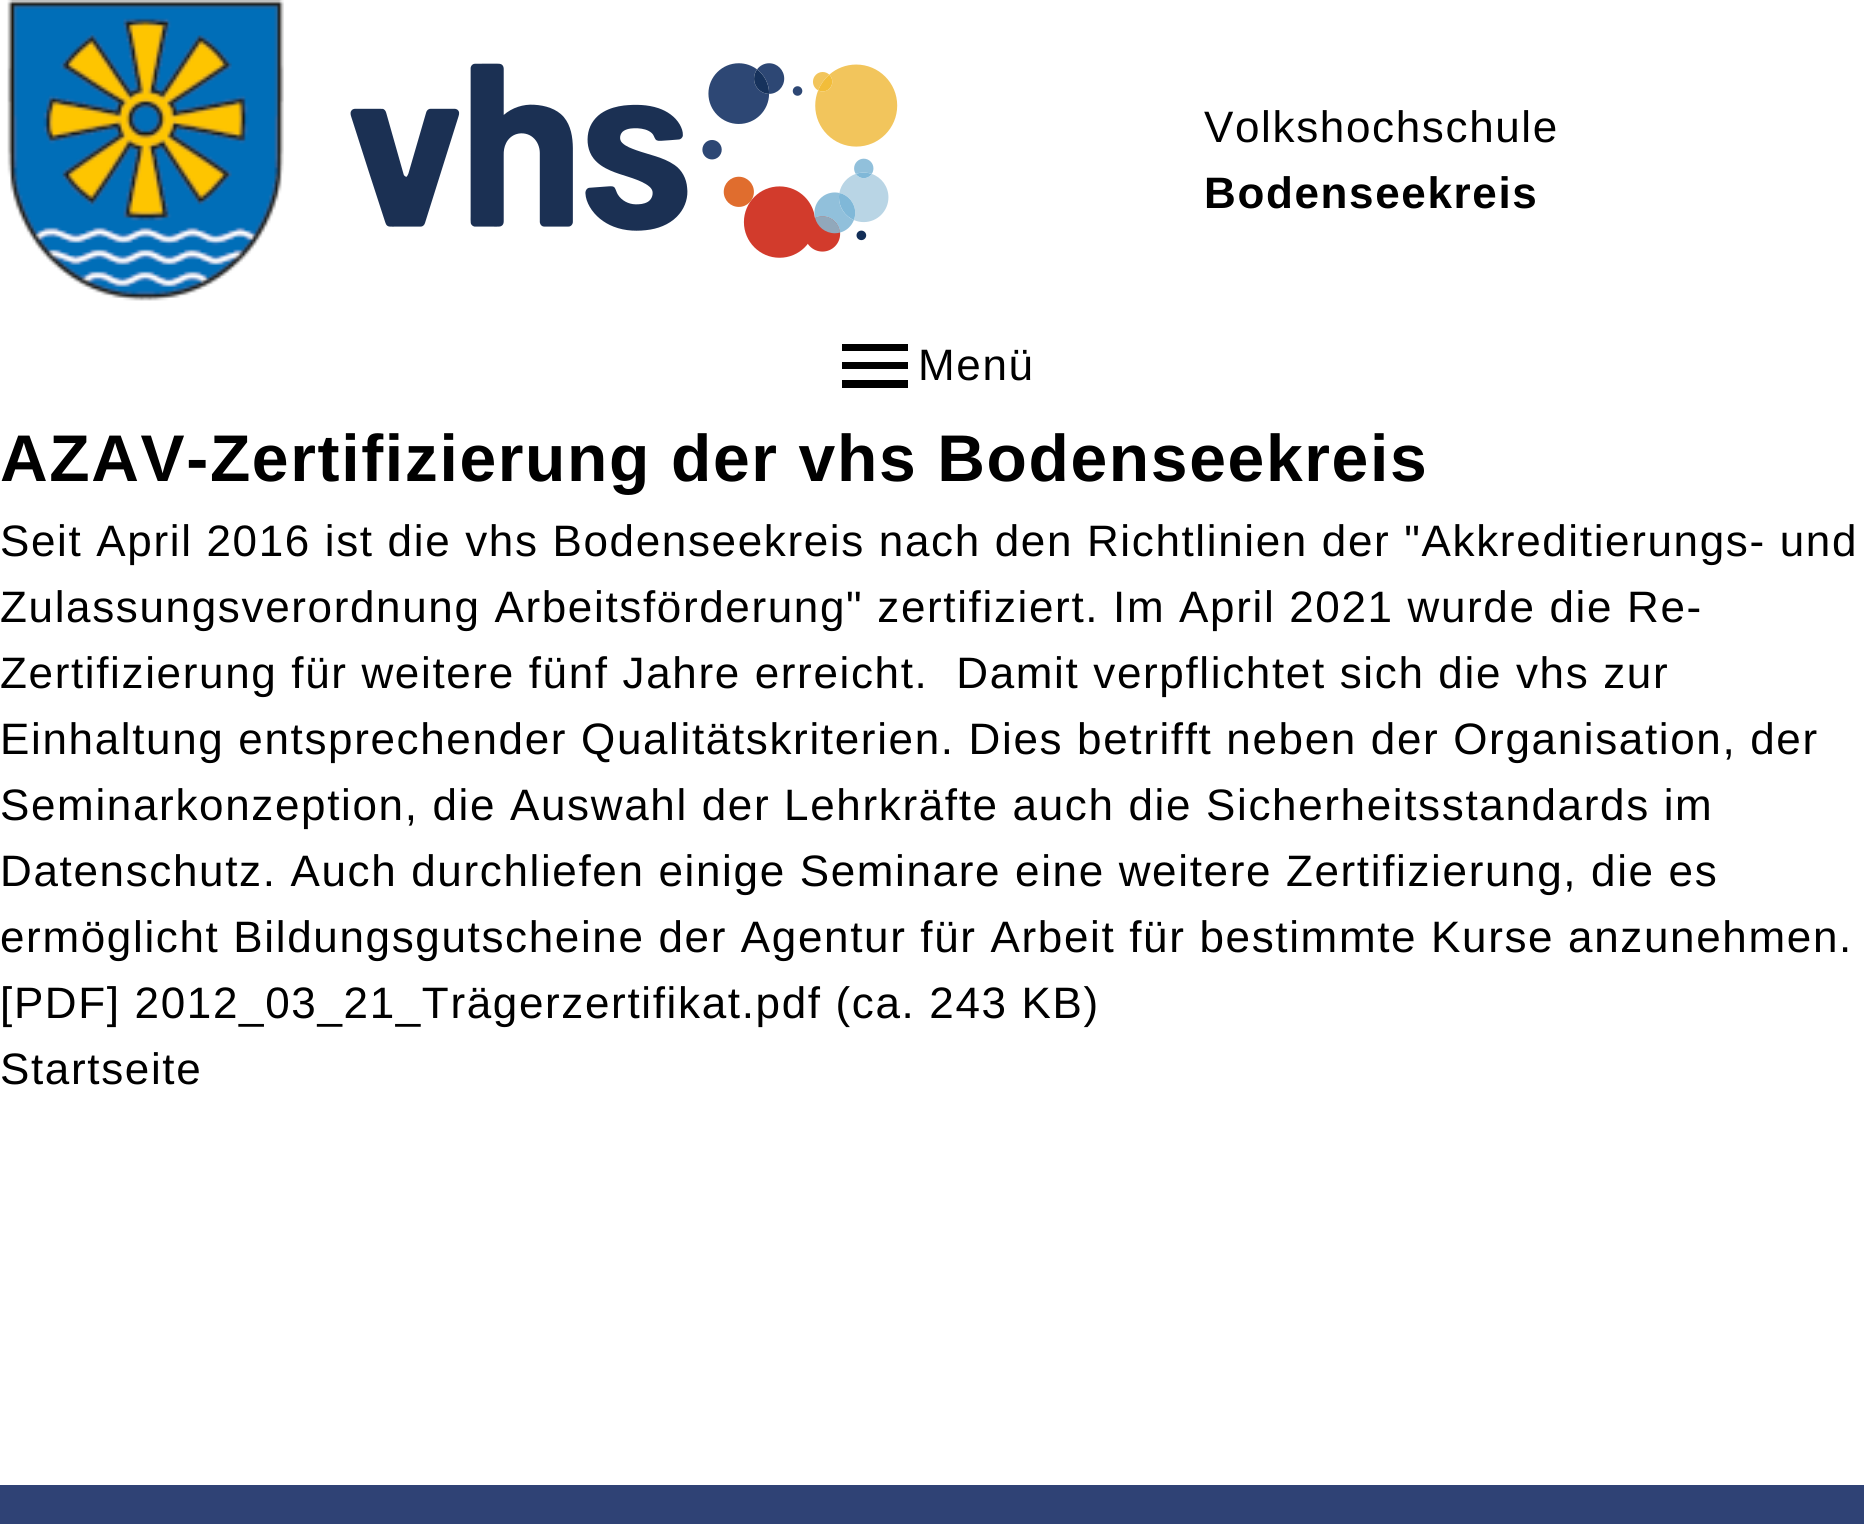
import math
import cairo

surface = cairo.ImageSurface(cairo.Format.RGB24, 1864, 1524)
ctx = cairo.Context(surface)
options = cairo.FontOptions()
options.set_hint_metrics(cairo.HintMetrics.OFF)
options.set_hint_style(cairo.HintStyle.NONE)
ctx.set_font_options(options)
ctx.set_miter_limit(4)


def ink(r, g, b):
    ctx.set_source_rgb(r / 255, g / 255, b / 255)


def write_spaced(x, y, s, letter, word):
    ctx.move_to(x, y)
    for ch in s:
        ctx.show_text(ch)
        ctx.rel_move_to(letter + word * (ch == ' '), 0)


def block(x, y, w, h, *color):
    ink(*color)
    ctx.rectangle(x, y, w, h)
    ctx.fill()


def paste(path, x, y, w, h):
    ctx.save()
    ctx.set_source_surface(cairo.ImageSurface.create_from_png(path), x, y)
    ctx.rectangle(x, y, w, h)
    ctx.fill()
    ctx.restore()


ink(255, 255, 255)
ctx.paint()
paste("pic1.png", 7, 0, 277, 301)
paste("pic2.png", 350, 63, 548, 195)
ctx.select_font_face("Liberation Sans")
ctx.set_font_size(44)
ink(0, 0, 0)
write_spaced(1204, 142, "Volkshochschule", 1.65, 0)
ctx.select_font_face("Liberation Sans", cairo.FontSlant.NORMAL, cairo.FontWeight.BOLD)
write_spaced(1204, 208, "Bodenseekreis", 1.65, 0)
ctx.new_path()
ctx.move_to(842, 344)
ctx.line_to(908, 344)
ctx.line_to(908, 351)
ctx.line_to(842, 351)
ctx.line_to(842, 344)
ctx.move_to(842, 362)
ctx.line_to(908, 362)
ctx.line_to(908, 369)
ctx.line_to(842, 369)
ctx.line_to(842, 362)
ctx.move_to(842, 380)
ctx.line_to(908, 380)
ctx.line_to(908, 388)
ctx.line_to(842, 388)
ctx.close_path()
ctx.fill()
ctx.select_font_face("Liberation Sans")
write_spaced(918, 380, "Menü", 1.65, 0)
ctx.select_font_face("Liberation Sans", cairo.FontSlant.NORMAL, cairo.FontWeight.BOLD)
ctx.set_font_size(66)
write_spaced(0, 481, "AZAV-Zertifizierung der vhs Bodenseekreis", 1.65, 0)
ctx.select_font_face("Liberation Sans")
ctx.set_font_size(44)
write_spaced(0, 556, "Seit April 2016 ist die vhs Bodenseekreis nach den Richtlinien der \"Akkreditierungs- und", 1.65, 0)
write_spaced(0, 622, "Zulassungsverordnung Arbeitsförderung\" zertifiziert. Im April 2021 wurde die Re-", 1.65, 0)
write_spaced(0, 688, "Zertifizierung für weitere fünf Jahre erreicht.  Damit verpflichtet sich die vhs zur", 1.65, 0)
write_spaced(0, 754, "Einhaltung entsprechender Qualitätskriterien. Dies betrifft neben der Organisation, der", 1.65, 0)
write_spaced(0, 820, "Seminarkonzeption, die Auswahl der Lehrkräfte auch die Sicherheitsstandards im", 1.65, 0)
write_spaced(0, 886, "Datenschutz. Auch durchliefen einige Seminare eine weitere Zertifizierung, die es", 1.65, 0)
write_spaced(0, 952, "ermöglicht Bildungsgutscheine der Agentur für Arbeit für bestimmte Kurse anzunehmen.", 1.65, 0)
write_spaced(0, 1018, "[PDF] 2012_03_21_Trägerzertifikat.pdf (ca. 243 KB)", 1.65, 0)
write_spaced(0, 1084, "Startseite", 1.65, 0)
block(0, 1485, 1864, 39, 47, 66, 117)
surface.write_to_png("screenshot.png")
